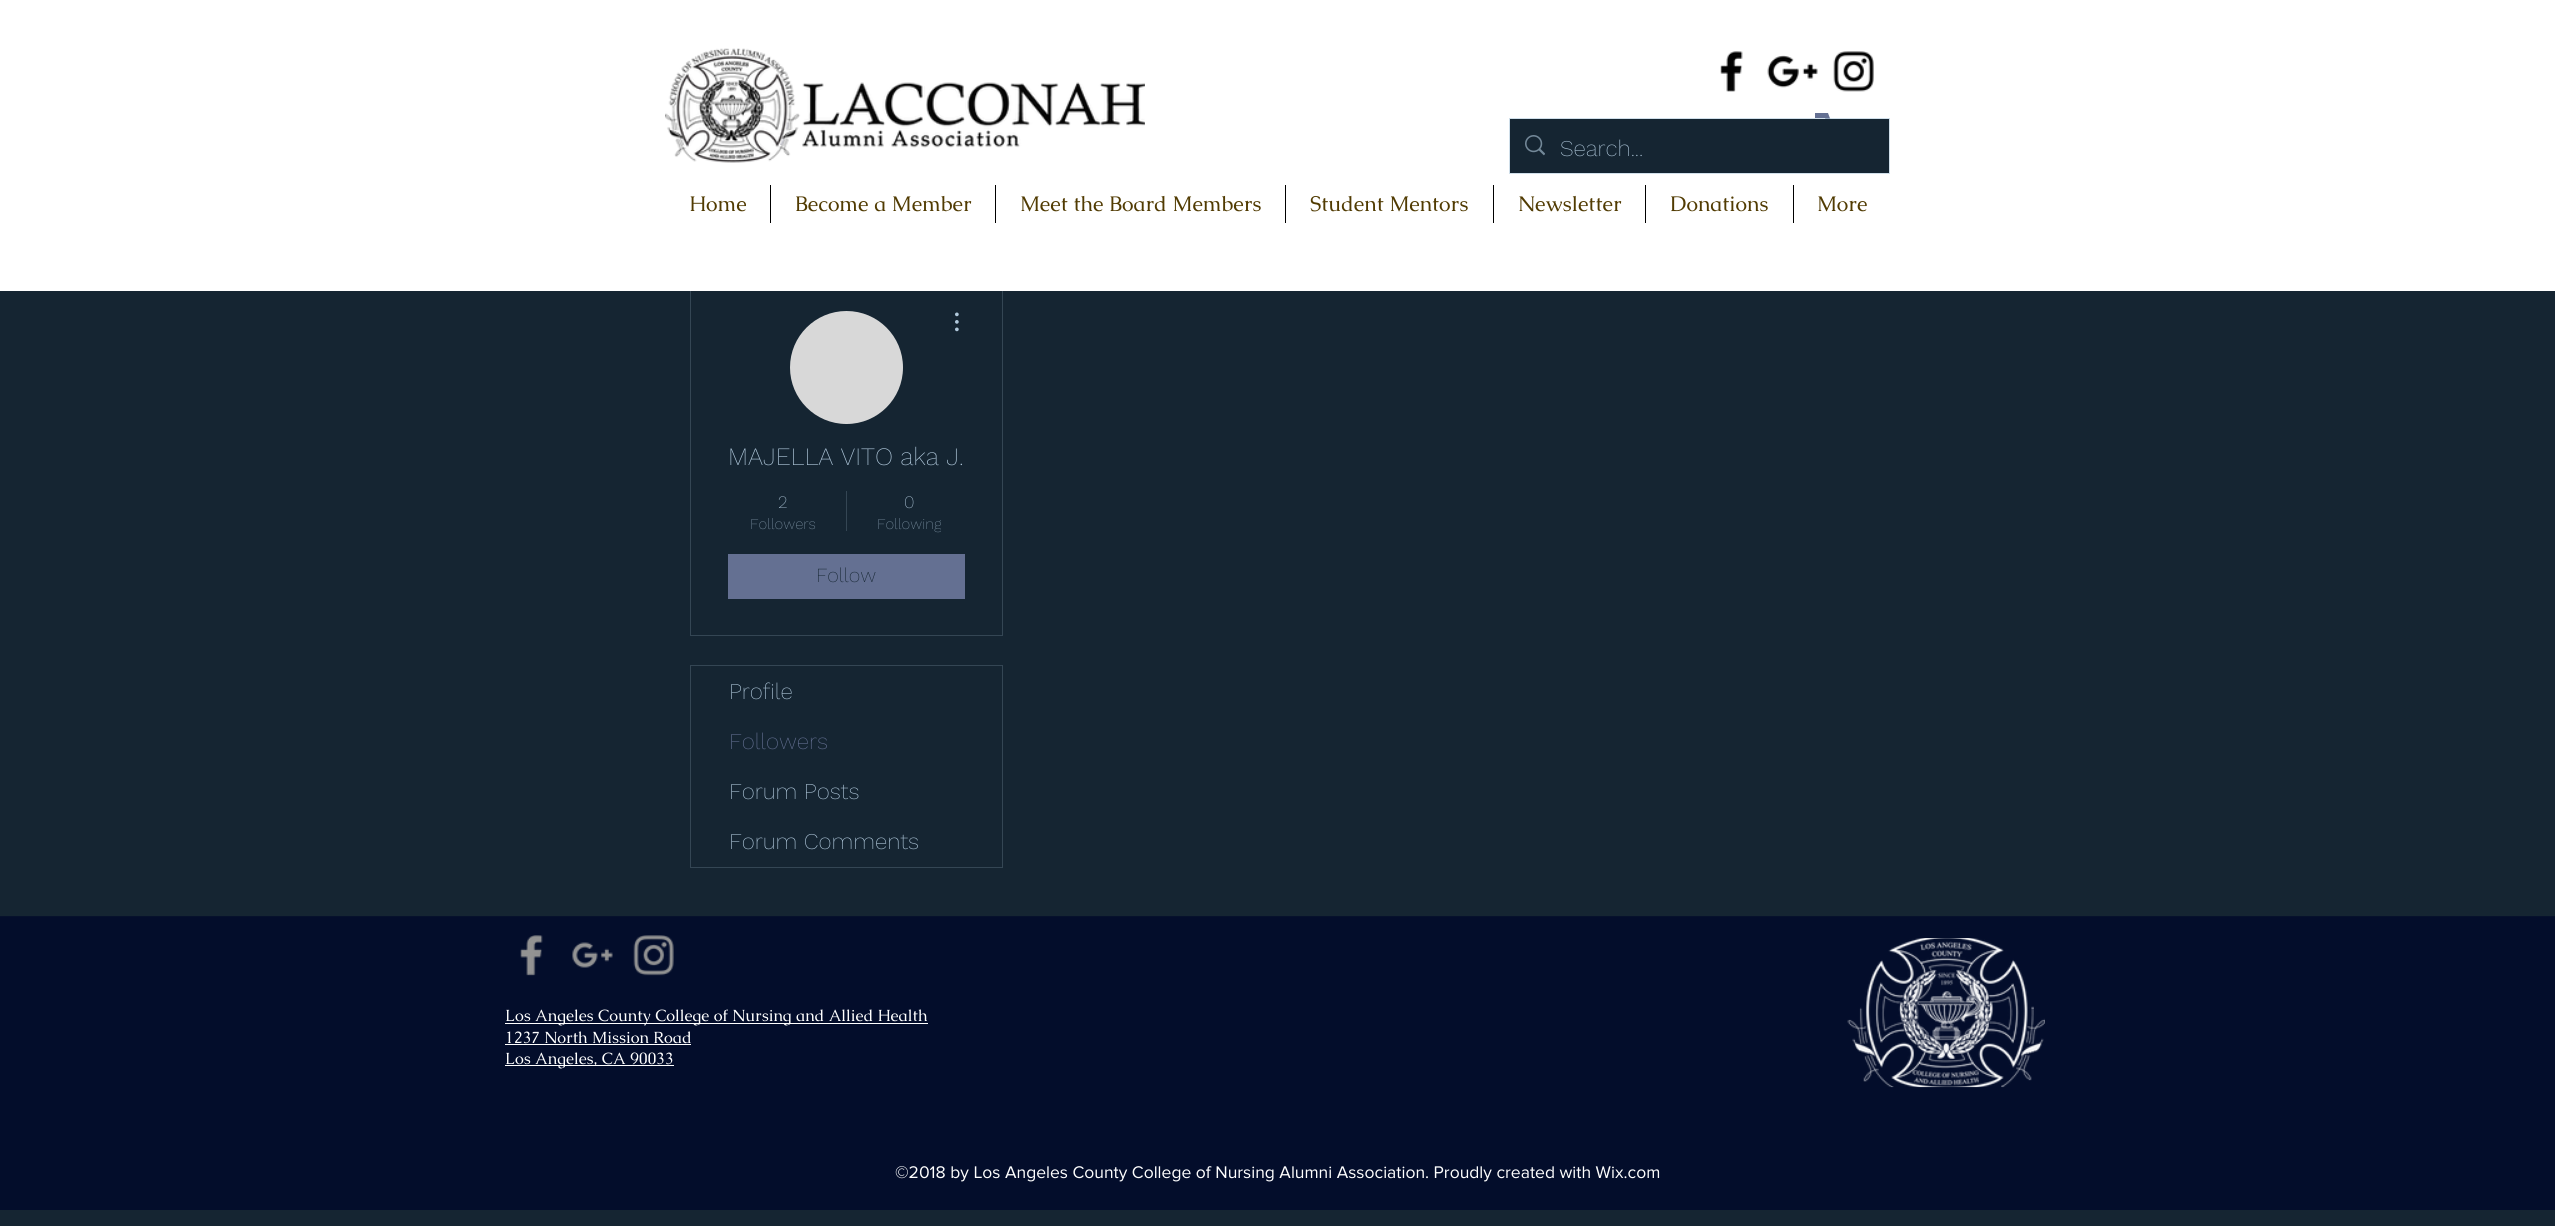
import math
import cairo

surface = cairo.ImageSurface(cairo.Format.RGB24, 2555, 1226)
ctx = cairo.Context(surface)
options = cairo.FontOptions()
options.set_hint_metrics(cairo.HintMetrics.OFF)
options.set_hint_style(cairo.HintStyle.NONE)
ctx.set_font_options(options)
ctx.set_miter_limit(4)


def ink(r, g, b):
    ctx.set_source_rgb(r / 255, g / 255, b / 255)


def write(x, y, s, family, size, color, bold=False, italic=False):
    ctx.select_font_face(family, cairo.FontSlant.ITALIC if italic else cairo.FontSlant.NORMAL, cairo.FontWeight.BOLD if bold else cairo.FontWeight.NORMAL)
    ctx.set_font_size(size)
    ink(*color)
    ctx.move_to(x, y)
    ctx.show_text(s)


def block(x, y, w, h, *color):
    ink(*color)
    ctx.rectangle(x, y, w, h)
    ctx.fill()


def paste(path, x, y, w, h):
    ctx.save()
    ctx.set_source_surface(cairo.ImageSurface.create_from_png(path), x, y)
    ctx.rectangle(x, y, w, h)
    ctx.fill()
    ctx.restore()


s1 = dict(family="Work Sans ExtraLight", size=22.5, color=(177, 201, 220))
s2 = dict(family="Caudex", size=21.25, color=(81, 59, 2))
s3 = dict(family="Work Sans ExtraLight", size=25, color=(177, 201, 220))
s4 = dict(family="Work Sans ExtraLight", size=17.5, color=(177, 201, 220))
s5 = dict(family="Work Sans ExtraLight", size=15, color=(130, 152, 169))
s6 = dict(family="Work Sans ExtraLight", size=20, color=(21, 37, 50))
s7 = dict(family="Work Sans ExtraLight", size=22.5, color=(100, 112, 146))
s8 = dict(family="Caudex", size=16.25, color=(255, 255, 255))
s9 = dict(family="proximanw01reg", size=17.5, color=(255, 255, 255))

ink(21, 37, 50)
ctx.paint()
ctx.rectangle(690.5, 274.5, 312, 361)
ink(52, 70, 84)
ctx.set_line_width(1)
ctx.stroke()
block(0, 0, 2555, 291, 255, 255, 255)
paste("pic1.png", 665, 48, 480, 115)
paste("pic2.png", 1720, 51, 23, 41)
paste("pic3.png", 1767, 55, 51, 33)
paste("pic4.png", 1833, 51, 41, 41)
ink(100, 112, 146)
ctx.new_path()
ctx.move_to(1885, 127)
ctx.line_to(1875, 153)
ctx.line_to(1838, 153)
ctx.line_to(1825, 118)
ctx.line_to(1815, 118)
ctx.line_to(1815, 113)
ctx.line_to(1828, 113)
ctx.line_to(1841, 148)
ctx.line_to(1872, 148)
ctx.line_to(1880, 127)
ctx.fill()
ctx.rectangle(1509.5, 118.5, 380, 55)
ctx.set_source_rgba(0.694, 0.788, 0.863, 0.6)
ctx.stroke()
block(1510, 119, 379, 54, 21, 37, 50)
paste("pic5.png", 1525, 135, 20, 21)
write(1560, 156, "Search...", **s1)
write(689, 211, "Home", **s2)
block(770, 185, 1, 38, 0, 0, 0)
write(795, 211, "Become a Member", **s2)
block(995, 185, 1, 38, 0, 0, 0)
write(1020, 211, "Meet the Board Members", **s2)
block(1285, 185, 1, 38, 0, 0, 0)
write(1310, 211, "Student Mentors", **s2)
block(1493, 185, 1, 38, 0, 0, 0)
write(1518, 211, "Newsletter", **s2)
block(1645, 185, 1, 38, 0, 0, 0)
write(1670, 211, "Donations", **s2)
block(1793, 185, 1, 38, 0, 0, 0)
write(1817, 211, "More", **s2)
ink(216, 216, 216)
ctx.new_path()
ctx.arc(846.5, 367.5, 56.5, 0, 2 * math.pi)
ctx.fill()
paste("pic6.png", 955, 312, 4, 20)
write(728, 465, "MAJELLA VITO aka J.", **s3)
write(778, 508, "2", **s4)
write(750, 529, "Followers", **s5)
block(846, 491, 1, 40, 52, 70, 84)
write(904, 508, "0", **s4)
ctx.save()
ctx.rectangle(878, 514, 63, 20)
ctx.clip()
write(877, 529, "Following", **s5)
ctx.restore()
block(728, 554, 237, 45, 100, 112, 146)
write(816, 582, "Follow", **s6)
ctx.rectangle(690.5, 665.5, 312, 202)
ink(52, 70, 84)
ctx.stroke()
write(729, 699, "Profile", **s1)
write(729, 749, "Followers", **s7)
write(729, 799, "Forum Posts", **s1)
write(729, 849, "Forum Comments", **s1)
block(0, 917, 2555, 293, 3, 13, 43)
block(0, 916, 2555, 1, 6, 17, 44)
paste("pic7.png", 520, 935, 23, 41)
paste("pic8.png", 572, 942, 41, 26)
paste("pic9.png", 633, 935, 41, 41)
paste("pic10.png", 1847, 938, 198, 150)
block(505, 1023, 423, 1, 255, 255, 255)
write(505, 1021, "Los Angeles County College of Nursing and Allied Health", **s8)
write(505, 1043, "1237 North Mission Road", **s8)
block(505, 1044, 186, 1, 255, 255, 255)
block(505, 1065, 169, 1, 255, 255, 255)
write(505, 1064, "Los Angeles, CA 90033", **s8)
write(895, 1178, "©2018 by Los Angeles County College of Nursing Alumni Association. Proudly created with Wix.com", **s9)
surface.write_to_png("screenshot.png")
